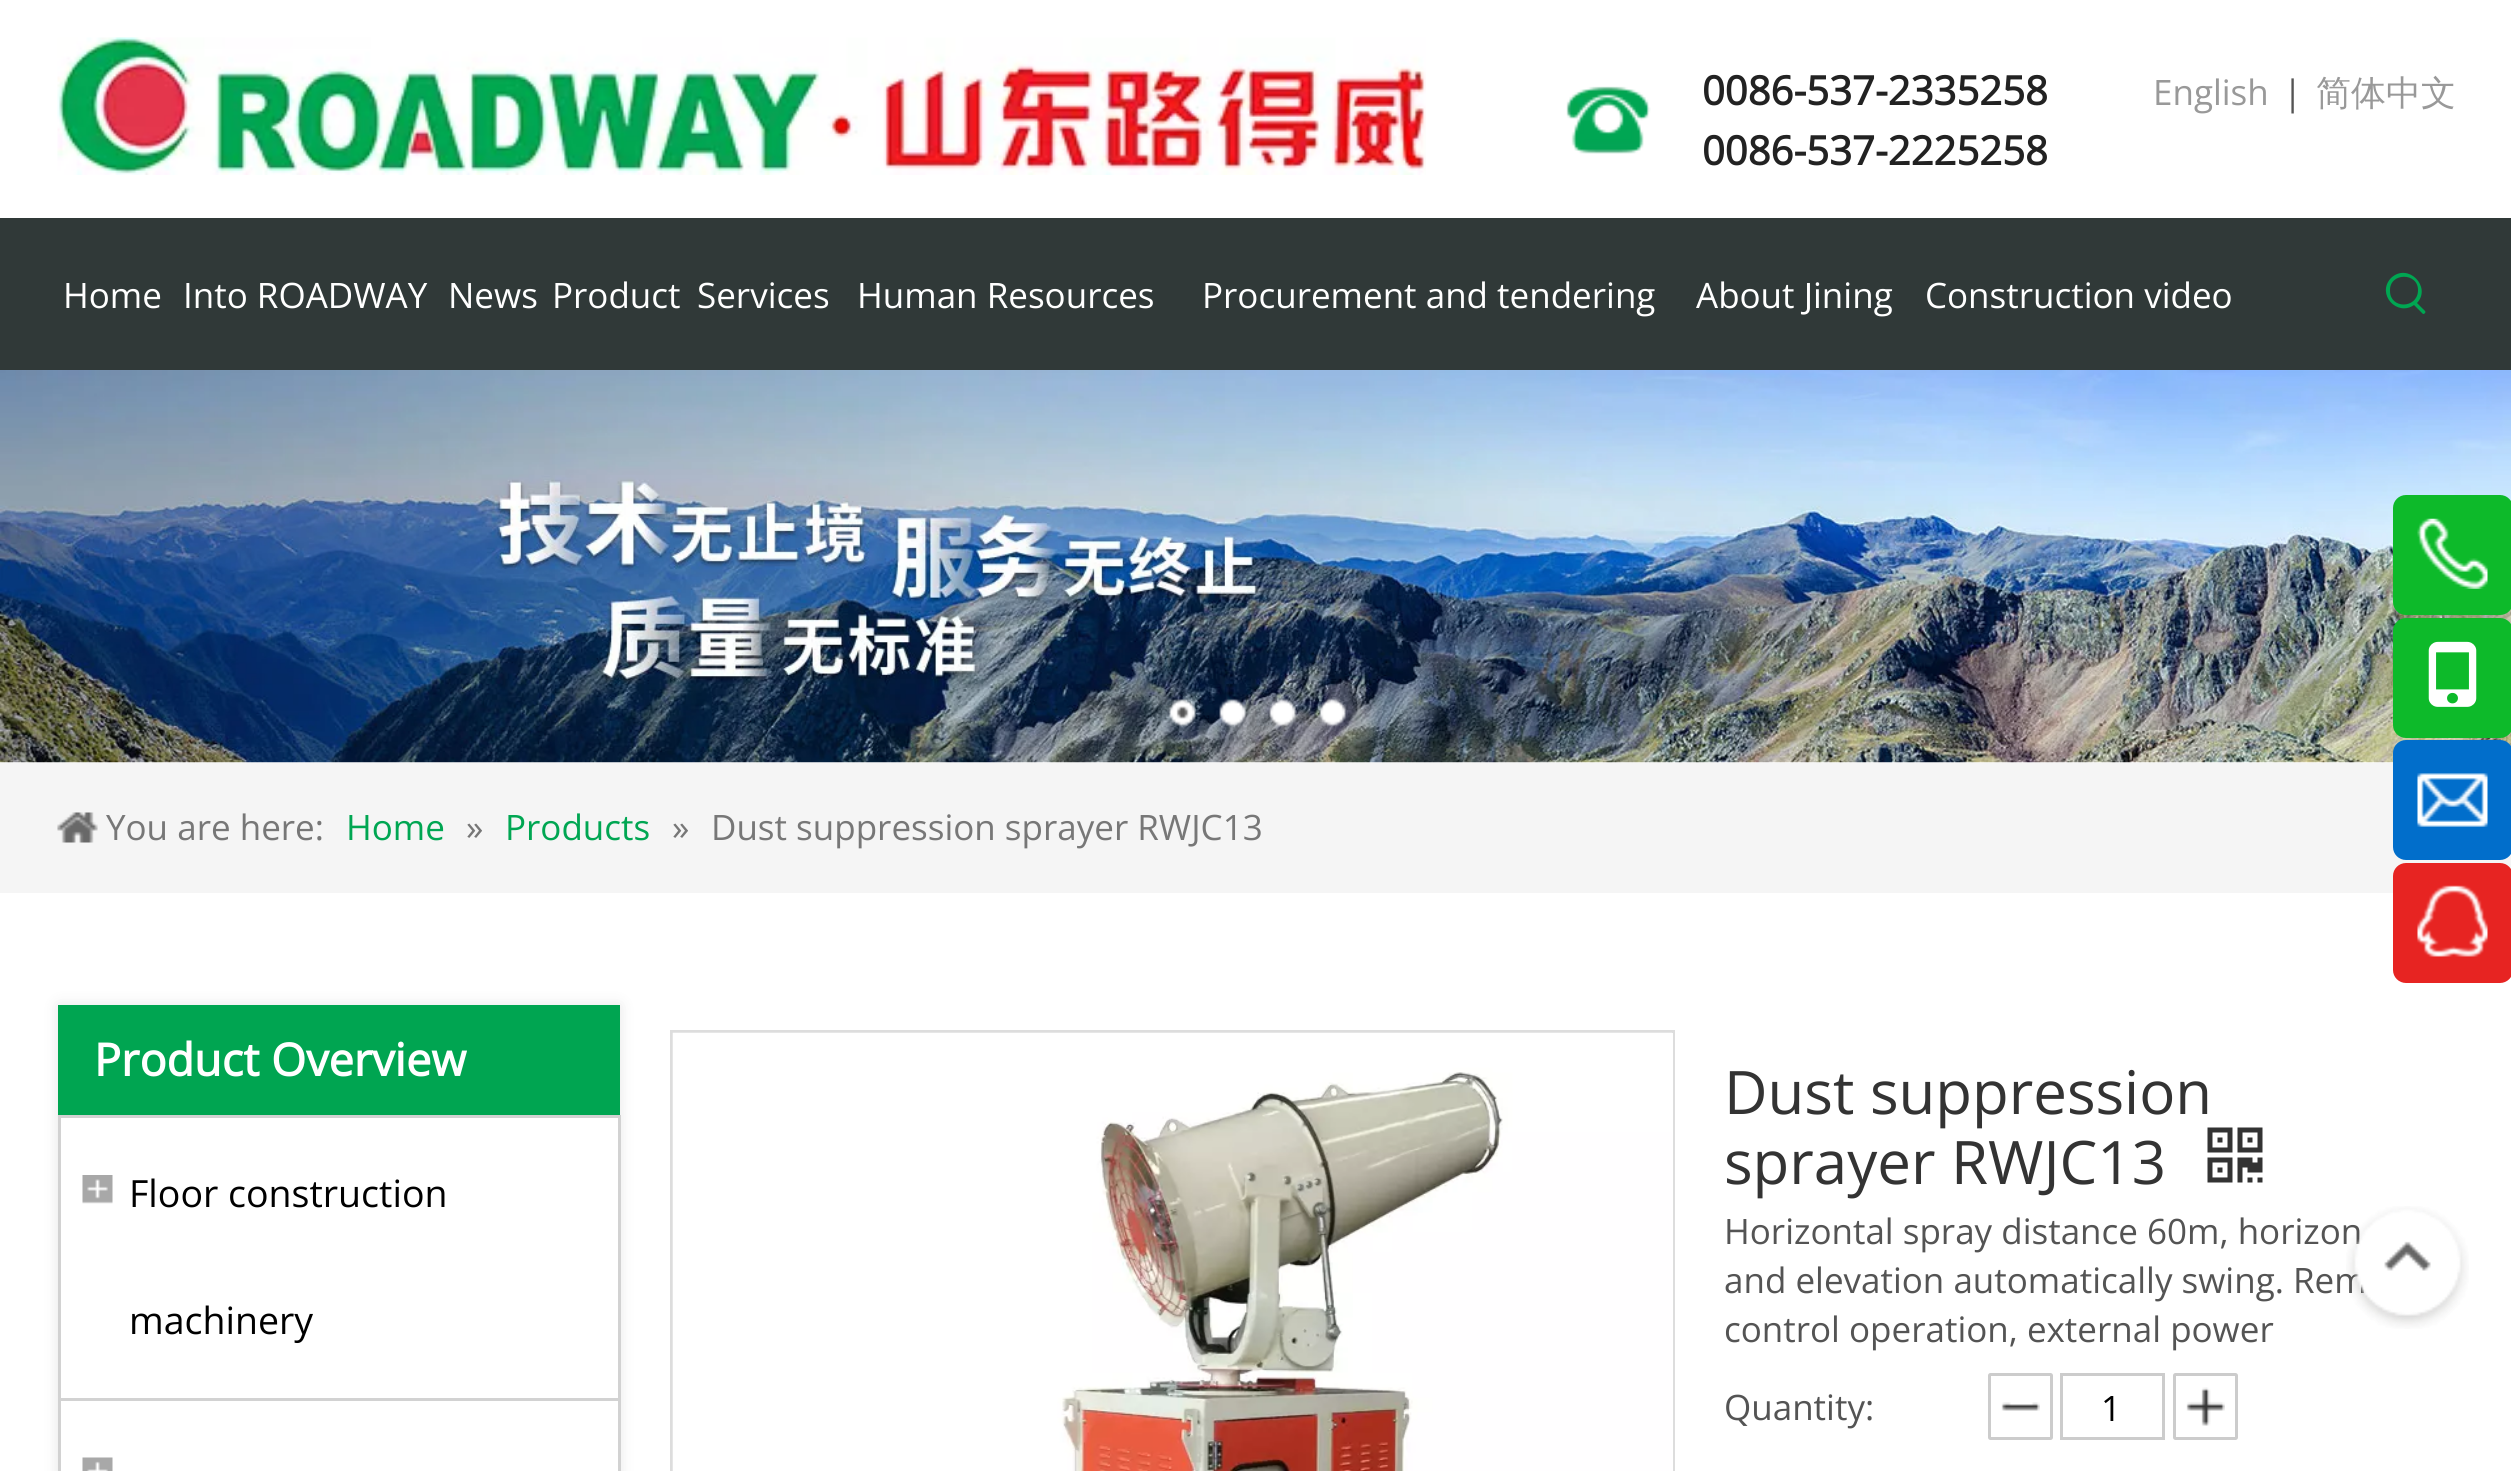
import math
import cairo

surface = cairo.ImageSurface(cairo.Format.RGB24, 2511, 1471)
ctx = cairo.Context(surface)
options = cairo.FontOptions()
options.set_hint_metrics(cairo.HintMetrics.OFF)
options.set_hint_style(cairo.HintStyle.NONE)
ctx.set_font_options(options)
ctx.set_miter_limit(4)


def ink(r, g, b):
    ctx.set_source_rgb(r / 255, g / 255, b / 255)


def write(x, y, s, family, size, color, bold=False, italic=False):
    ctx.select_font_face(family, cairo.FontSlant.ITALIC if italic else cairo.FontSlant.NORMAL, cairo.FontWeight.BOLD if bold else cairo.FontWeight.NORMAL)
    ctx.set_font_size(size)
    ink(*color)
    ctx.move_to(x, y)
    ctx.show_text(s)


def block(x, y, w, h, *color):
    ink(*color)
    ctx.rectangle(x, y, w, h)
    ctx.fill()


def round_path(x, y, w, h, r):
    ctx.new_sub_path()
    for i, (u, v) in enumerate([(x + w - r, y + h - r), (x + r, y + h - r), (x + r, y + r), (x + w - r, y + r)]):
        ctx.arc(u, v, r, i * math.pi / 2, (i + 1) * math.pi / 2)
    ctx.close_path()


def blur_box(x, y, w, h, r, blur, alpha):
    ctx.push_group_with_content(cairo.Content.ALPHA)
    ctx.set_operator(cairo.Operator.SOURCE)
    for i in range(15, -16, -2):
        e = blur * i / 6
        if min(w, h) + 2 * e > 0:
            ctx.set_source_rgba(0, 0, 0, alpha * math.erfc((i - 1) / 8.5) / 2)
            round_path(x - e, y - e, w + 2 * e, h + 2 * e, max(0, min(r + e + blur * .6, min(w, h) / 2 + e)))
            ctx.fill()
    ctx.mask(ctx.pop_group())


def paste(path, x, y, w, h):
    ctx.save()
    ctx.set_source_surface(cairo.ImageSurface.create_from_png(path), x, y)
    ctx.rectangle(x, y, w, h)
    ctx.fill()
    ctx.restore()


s1 = dict(family="Open Sans", size=40, color=(34, 34, 34), bold=True)
s2 = dict(family="Open Sans", size=35, color=(153, 153, 153))
s3 = dict(family="Open Sans", size=35, color=(84, 84, 84))
s4 = dict(family="WenQuanYi Zen Hei Medium", size=35, color=(153, 153, 153))
s5 = dict(family="Open Sans", size=35, color=(255, 255, 255))
s6 = dict(family="Open Sans", size=35, color=(119, 119, 119))
s7 = dict(family="Open Sans", size=35, color=(0, 166, 82))
s8 = dict(family="Open Sans", size=45, color=(255, 255, 255), bold=True)
s9 = dict(family="Open Sans", size=37.5, color=(0, 0, 0))
s10 = dict(family="Open Sans", size=60, color=(51, 51, 51))
s11 = dict(family="Open Sans", size=35, color=(0, 0, 0))

ink(255, 255, 255)
ctx.paint()
paste("pic1.png", 57, 37, 1369, 138)
paste("pic2.png", 1566, 86, 85, 68)
write(1702, 105, "0086-537-2335258", **s1)
write(1702, 165, "0086-537-2225258", **s1)
write(2153, 105, "English", **s2)
write(2283, 105, "|", **s3)
write(2316, 105, "简体中文", **s4)
block(0, 218, 2511, 152, 48, 57, 56)
write(63, 308, "Home", **s5)
write(183, 308, "Into ROADWAY", **s5)
write(448, 308, "News", **s5)
write(552, 308, "Product", **s5)
write(697, 308, "Services", **s5)
write(857, 308, "Human Resources", **s5)
write(1202, 308, "Procurement and tendering", **s5)
write(1696, 308, "About Jining", **s5)
write(1925, 308, "Construction video", **s5)
ink(0, 166, 82)
ctx.new_path()
ctx.move_to(2390, 291)
ctx.curve_to(2389, 272, 2419, 272, 2418, 291)
ctx.curve_to(2417, 309, 2390, 309, 2390, 291)
ctx.close_path()
ctx.move_to(2425, 311)
ctx.line_to(2417, 303)
ctx.curve_to(2432, 287, 2408, 262, 2391, 278)
ctx.curve_to(2376, 294, 2397, 317, 2414, 305)
ctx.line_to(2423, 314)
ctx.curve_to(2425, 314, 2426, 312, 2425, 311)
ctx.fill()
paste("pic7.png", 0, 370, 2511, 393)
ink(13, 186, 42)
round_path(2393, 495, 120, 120, 13)
ctx.fill()
paste("pic3.png", 2417, 518, 71, 71)
round_path(2393, 618, 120, 120, 13)
ctx.fill()
paste("pic4.png", 2428, 641, 49, 66)
block(0, 763, 2511, 130, 245, 245, 245)
ink(1, 110, 203)
round_path(2393, 740, 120, 120, 13)
ctx.fill()
paste("pic5.png", 2417, 773, 71, 54)
ink(231, 36, 34)
round_path(2393, 863, 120, 120, 13)
ctx.fill()
paste("pic6.png", 2417, 885, 71, 72)
paste("pic8.png", 1169, 698, 27, 29)
paste("pic9.png", 1219, 698, 27, 29)
paste("pic10.png", 1269, 698, 27, 29)
paste("pic11.png", 1319, 698, 27, 29)
paste("pic12.png", 57, 812, 41, 31)
write(106, 840, "You are here:", **s6)
write(346, 840, "Home", **s7)
write(466, 840, "»", **s6)
write(505, 840, "Products", **s7)
write(672, 840, "»", **s6)
write(711, 840, "Dust suppression sprayer RWJC13", **s6)
ctx.save()
ctx.set_fill_rule(cairo.FillRule.EVEN_ODD)
ctx.new_path()
ctx.move_to(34, 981)
ctx.line_to(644, 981)
ctx.line_to(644, 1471)
ctx.line_to(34, 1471)
ctx.close_path()
ctx.move_to(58, 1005)
ctx.line_to(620, 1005)
ctx.line_to(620, 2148)
ctx.line_to(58, 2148)
ctx.close_path()
ctx.clip()
ink(51, 51, 51)
blur_box(58, 1005, 562, 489, 0, 7.5, 0.12)
ctx.restore()
block(58, 1005, 562, 110, 0, 165, 81)
write(94, 1076, "Product Overview", **s8)
block(618, 1115, 3, 356, 210, 210, 210)
block(58, 1115, 3, 356, 210, 210, 210)
block(60, 1115, 558, 3, 210, 210, 210)
paste("pic13.png", 82, 1175, 31, 29)
write(129, 1207, "Floor construction", **s9)
write(129, 1334, "machinery", **s9)
block(60, 1398, 558, 3, 210, 210, 210)
paste("pic14.png", 82, 1457, 31, 14)
ctx.rectangle(671.5, 1031.5, 1002, 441)
ink(221, 221, 221)
ctx.set_line_width(3)
ctx.stroke()
block(1672, 1033, 1, 438, 255, 255, 255)
paste("pic15.png", 672, 1032, 1000, 439)
write(1724, 1114, "Dust suppression", **s10)
write(1724, 1184, "sprayer RWJC13", **s10)
paste("pic16.png", 2207, 1127, 56, 56)
write(1724, 1244, "Horizontal spray distance 60m, horizon", **s3)
write(1724, 1293, "and elevation automatically swing. Rem", **s3)
write(1724, 1342, "control operation, external power", **s3)
write(1724, 1420, "Quantity:", **s3)
paste("pic17.png", 2001, 1402, 39, 9)
round_path(1989.5, 1374.5, 62, 64, 1)
ink(204, 204, 204)
ctx.stroke()
ctx.rectangle(2061.5, 1374.5, 102, 64)
ctx.stroke()
write(2101, 1421, "1", **s11)
paste("pic18.png", 2186, 1387, 39, 39)
round_path(2174.5, 1374.5, 62, 64, 1)
ink(204, 204, 204)
ctx.stroke()
paste("pic19.png", 2346, 1206, 123, 123)
surface.write_to_png("screenshot.png")
